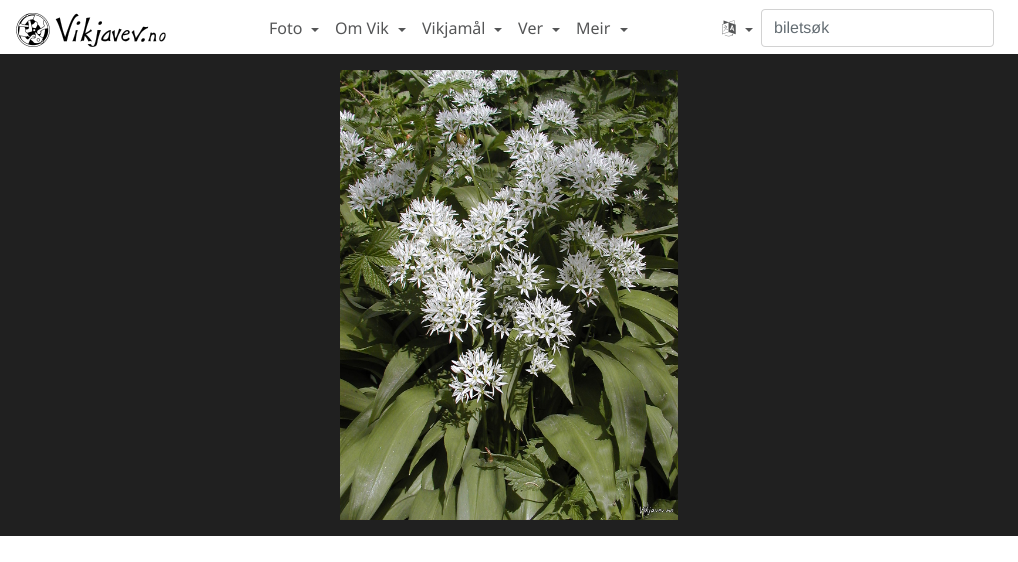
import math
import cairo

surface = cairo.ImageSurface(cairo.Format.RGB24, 1018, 562)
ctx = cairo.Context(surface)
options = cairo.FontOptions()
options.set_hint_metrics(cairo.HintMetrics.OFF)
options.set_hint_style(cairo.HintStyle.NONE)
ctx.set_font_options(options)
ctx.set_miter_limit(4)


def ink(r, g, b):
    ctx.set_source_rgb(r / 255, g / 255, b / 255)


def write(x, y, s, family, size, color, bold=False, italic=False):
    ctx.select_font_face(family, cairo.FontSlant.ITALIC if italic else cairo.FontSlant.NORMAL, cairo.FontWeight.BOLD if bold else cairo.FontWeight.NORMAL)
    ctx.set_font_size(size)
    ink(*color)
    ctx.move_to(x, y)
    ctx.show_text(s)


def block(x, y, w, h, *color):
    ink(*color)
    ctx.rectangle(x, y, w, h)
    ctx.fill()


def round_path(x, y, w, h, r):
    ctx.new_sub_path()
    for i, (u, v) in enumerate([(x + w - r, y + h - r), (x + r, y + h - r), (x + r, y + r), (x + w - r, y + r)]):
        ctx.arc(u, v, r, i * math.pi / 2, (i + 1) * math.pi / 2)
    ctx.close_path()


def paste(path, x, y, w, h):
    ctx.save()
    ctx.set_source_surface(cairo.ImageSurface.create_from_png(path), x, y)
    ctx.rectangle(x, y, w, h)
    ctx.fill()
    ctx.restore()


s1 = dict(family="Noto Sans", size=16, color=(84, 85, 86))
s2 = dict(family="Liberation Sans", size=16, color=(99, 108, 114))

ink(255, 255, 255)
ctx.paint()
paste("pic1.png", 16, 13, 150, 34)
write(269, 34, "Foto", **s1)
ctx.new_path()
ctx.move_to(311, 28)
ctx.line_to(319, 28)
ctx.line_to(315, 32)
ctx.close_path()
ctx.fill()
write(335, 34, "Om Vik", **s1)
ctx.new_path()
ctx.move_to(398, 28)
ctx.line_to(406, 28)
ctx.line_to(402, 32)
ctx.close_path()
ctx.fill()
write(422, 34, "Vikjamål", **s1)
ctx.new_path()
ctx.move_to(494, 28)
ctx.line_to(502, 28)
ctx.line_to(498, 32)
ctx.close_path()
ctx.fill()
write(518, 34, "Ver", **s1)
ctx.new_path()
ctx.move_to(552, 28)
ctx.line_to(560, 28)
ctx.line_to(556, 32)
ctx.close_path()
ctx.fill()
write(576, 34, "Meir", **s1)
ctx.new_path()
ctx.move_to(620, 28)
ctx.line_to(628, 28)
ctx.line_to(624, 32)
ctx.close_path()
ctx.fill()
paste("pic2.png", 722, 20, 14, 17)
ctx.new_path()
ctx.move_to(745, 28)
ctx.line_to(753, 28)
ctx.line_to(749, 32)
ctx.close_path()
ctx.fill()
round_path(761.5, 9.5, 232, 37, 3.5)
ink(210, 210, 210)
ctx.set_line_width(1)
ctx.stroke()
write(774, 33, "biletsøk", **s2)
block(0, 54, 1018, 482, 32, 32, 32)
paste("pic3.png", 340, 70, 338, 450)
surface.write_to_png("screenshot.png")
